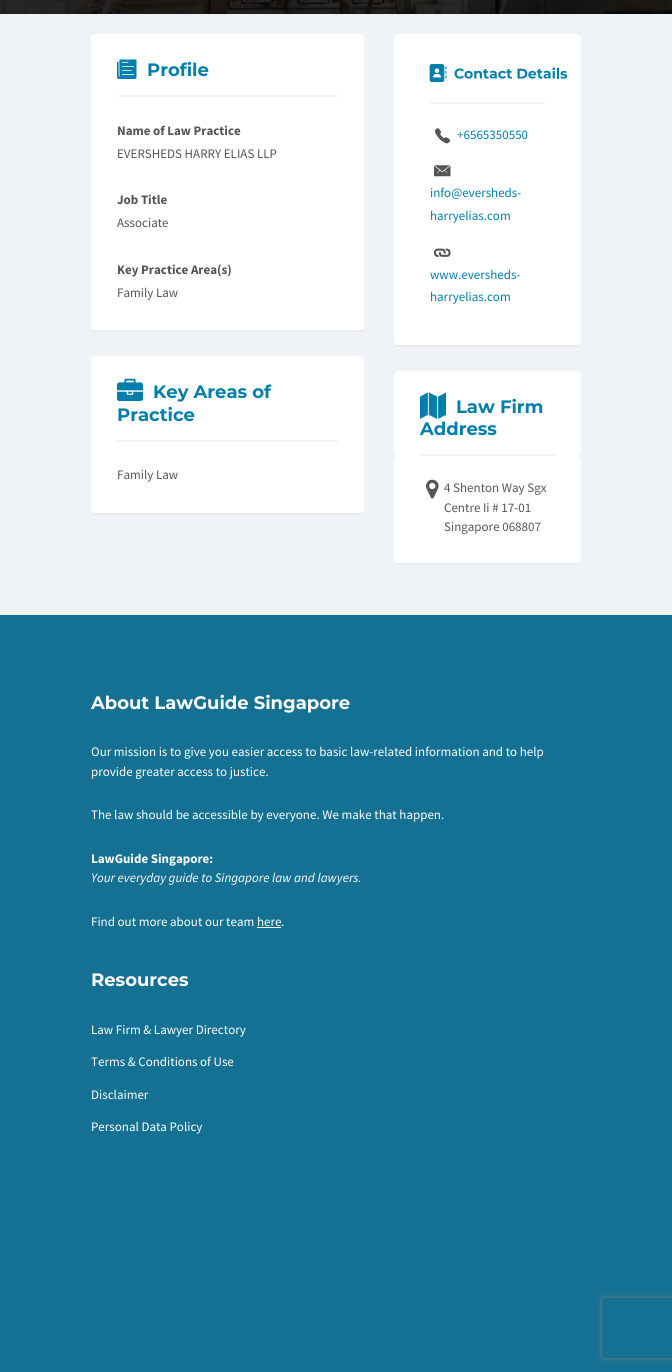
import math
import cairo

surface = cairo.ImageSurface(cairo.Format.RGB24, 672, 1372)
ctx = cairo.Context(surface)
options = cairo.FontOptions()
options.set_hint_metrics(cairo.HintMetrics.OFF)
options.set_hint_style(cairo.HintStyle.NONE)
ctx.set_font_options(options)
ctx.set_miter_limit(4)


def ink(r, g, b):
    ctx.set_source_rgb(r / 255, g / 255, b / 255)


def write(x, y, s, family, size, color, bold=False, italic=False):
    ctx.select_font_face(family, cairo.FontSlant.ITALIC if italic else cairo.FontSlant.NORMAL, cairo.FontWeight.BOLD if bold else cairo.FontWeight.NORMAL)
    ctx.set_font_size(size)
    ink(*color)
    ctx.move_to(x, y)
    ctx.show_text(s)


def block(x, y, w, h, *color):
    ink(*color)
    ctx.rectangle(x, y, w, h)
    ctx.fill()


def round_path(x, y, w, h, r):
    ctx.new_sub_path()
    for i, (u, v) in enumerate([(x + w - r, y + h - r), (x + r, y + h - r), (x + r, y + r), (x + w - r, y + r)]):
        ctx.arc(u, v, r, i * math.pi / 2, (i + 1) * math.pi / 2)
    ctx.close_path()


def blur_box(x, y, w, h, r, blur, alpha):
    ctx.push_group_with_content(cairo.Content.ALPHA)
    ctx.set_operator(cairo.Operator.SOURCE)
    for i in range(15, -16, -2):
        e = blur * i / 6
        if min(w, h) + 2 * e > 0:
            ctx.set_source_rgba(0, 0, 0, alpha * math.erfc((i - 1) / 8.5) / 2)
            round_path(x - e, y - e, w + 2 * e, h + 2 * e, max(0, min(r + e + blur * .6, min(w, h) / 2 + e)))
            ctx.fill()
    ctx.mask(ctx.pop_group())


def paste(path, x, y, w, h):
    ctx.save()
    ctx.set_source_surface(cairo.ImageSurface.create_from_png(path), x, y)
    ctx.rectangle(x, y, w, h)
    ctx.fill()
    ctx.restore()


s1 = dict(family="Montserrat", size=18, color=(0, 126, 173), bold=True)
s2 = dict(family="Source Sans Pro", size=13, color=(85, 85, 85), bold=True)
s3 = dict(family="Source Sans Pro", size=13, color=(85, 85, 85))
s4 = dict(family="Source Sans Pro", size=13, color=(0, 126, 173))
s5 = dict(family="Montserrat", size=18, color=(255, 255, 255), bold=True)
s6 = dict(family="Source Sans Pro", size=13, color=(255, 255, 255))
s7 = dict(family="Source Sans Pro", size=13, color=(255, 255, 255), bold=True)
s8 = dict(family="Source Sans Pro", size=13, color=(255, 255, 255), italic=True)

ink(240, 243, 246)
ctx.paint()
paste("pic1.png", 0, 0, 672, 14)
ink(233, 236, 239)
ctx.new_path()
ctx.move_to(91, 326)
ctx.curve_to(91, 329, 91, 332, 95, 332)
ctx.line_to(360, 332)
ctx.curve_to(364, 332, 364, 329, 364, 326)
ctx.curve_to(364, 328, 362, 330, 360, 330)
ctx.line_to(95, 330)
ctx.curve_to(93, 330, 91, 328, 91, 326)
ctx.close_path()
ctx.fill()
ink(255, 255, 255)
round_path(91.5, 34.5, 272, 295, 3.5)
ctx.fill_preserve()
ctx.set_line_width(1)
ctx.stroke()
block(117, 95, 221, 2, 244, 244, 244)
paste("pic2.png", 117, 59, 20, 20)
write(147, 76, "Profile", **s1)
write(117, 135, "Name of Law Practice", **s2)
write(117, 158, "EVERSHEDS HARRY ELIAS LLP", **s3)
write(117, 204, "Job Title", **s2)
write(117, 227, "Associate", **s3)
write(117, 274, "Key Practice Area(s)", **s2)
write(117, 297, "Family Law", **s3)
ink(233, 236, 239)
ctx.new_path()
ctx.move_to(91, 509)
ctx.curve_to(91, 512, 91, 515, 95, 515)
ctx.line_to(360, 515)
ctx.curve_to(364, 515, 364, 512, 364, 509)
ctx.curve_to(364, 511, 362, 513, 360, 513)
ctx.line_to(95, 513)
ctx.curve_to(93, 513, 91, 511, 91, 509)
ctx.close_path()
ctx.fill()
ink(255, 255, 255)
round_path(91.5, 356.5, 272, 156, 3.5)
ctx.fill_preserve()
ctx.stroke()
block(117, 440, 221, 2, 244, 244, 244)
paste("pic3.png", 117, 378, 26, 23)
write(153, 398, "Key Areas of", **s1)
write(117, 421, "Practice", **s1)
write(117, 479, "Family Law", **s3)
ink(233, 236, 239)
ctx.new_path()
ctx.move_to(394, 341)
ctx.line_to(394, 343)
ctx.curve_to(394, 345, 396, 347, 398, 347)
ctx.line_to(577, 347)
ctx.curve_to(579, 347, 581, 345, 581, 343)
ctx.line_to(581, 341)
ctx.curve_to(581, 343, 579, 345, 577, 345)
ctx.line_to(398, 345)
ctx.curve_to(396, 345, 394, 343, 394, 341)
ctx.close_path()
ctx.fill()
ink(255, 255, 255)
round_path(394.5, 34.5, 186, 310, 3.5)
ctx.fill_preserve()
ctx.stroke()
paste("pic4.png", 429, 64, 139, 18)
block(430, 102, 115, 2, 244, 244, 244)
paste("pic5.png", 435, 128, 16, 16)
write(457, 139, "+6565350550", **s4)
paste("pic6.png", 434, 165, 17, 12)
write(430, 197, "info@eversheds-", **s4)
write(430, 220, "harryelias.com", **s4)
paste("pic7.png", 434, 248, 17, 9)
write(430, 279, "www.eversheds-", **s4)
write(430, 301, "harryelias.com", **s4)
ink(233, 236, 239)
ctx.new_path()
ctx.move_to(394, 452)
ctx.line_to(394, 454)
ctx.curve_to(394, 456, 396, 458, 398, 458)
ctx.line_to(577, 458)
ctx.curve_to(579, 458, 581, 456, 581, 454)
ctx.line_to(581, 452)
ctx.curve_to(581, 454, 579, 456, 577, 456)
ctx.line_to(398, 456)
ctx.curve_to(396, 456, 394, 454, 394, 452)
ctx.close_path()
ctx.fill()
ink(255, 255, 255)
round_path(394.5, 371.5, 186, 84, 3.5)
ctx.fill_preserve()
ctx.stroke()
block(420, 454, 135, 2, 244, 244, 244)
paste("pic8.png", 420, 392, 26, 27)
write(456, 413, "Law Firm", **s1)
write(420, 435, "Address", **s1)
ink(233, 236, 239)
ctx.new_path()
ctx.move_to(394, 559)
ctx.line_to(394, 561)
ctx.curve_to(394, 563, 396, 565, 398, 565)
ctx.line_to(577, 565)
ctx.curve_to(579, 565, 581, 563, 581, 561)
ctx.line_to(581, 559)
ctx.curve_to(581, 561, 579, 563, 577, 563)
ctx.line_to(398, 563)
ctx.curve_to(396, 563, 394, 561, 394, 559)
ctx.close_path()
ctx.fill()
ink(255, 255, 255)
round_path(394.5, 456.5, 186, 106, 3.5)
ctx.fill_preserve()
ctx.stroke()
paste("pic9.png", 426, 479, 13, 20)
write(444, 492, "4 Shenton Way Sgx", **s3)
write(444, 512, "Centre Ii # 17-01", **s3)
write(444, 531, "Singapore 068807", **s3)
block(0, 615, 672, 757, 20, 113, 147)
write(91, 709, "About LawGuide Singapore", **s5)
write(91, 756, "Our mission is to give you easier access to basic law-related information and to help", **s6)
write(91, 776, "provide greater access to justice.", **s6)
write(91, 819, "The law should be accessible by everyone. We make that happen.", **s6)
write(91, 863, "LawGuide Singapore:", **s7)
write(91, 882, "Your everyday guide to Singapore law and lawyers.", **s8)
write(91, 926, "Find out more about our team here.", **s6)
block(257, 927, 24, 1, 255, 255, 255)
write(91, 986, "Resources", **s5)
write(91, 1034, "Law Firm & Lawyer Directory", **s6)
write(91, 1066, "Terms & Conditions of Use", **s6)
write(91, 1099, "Disclaimer", **s6)
write(91, 1131, "Personal Data Policy", **s6)
ctx.save()
ctx.set_fill_rule(cairo.FillRule.EVEN_ODD)
ctx.new_path()
ctx.move_to(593, 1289)
ctx.line_to(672, 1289)
ctx.line_to(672, 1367)
ctx.line_to(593, 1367)
ctx.close_path()
ctx.move_to(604, 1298)
ctx.line_to(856, 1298)
ctx.curve_to(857, 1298, 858, 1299, 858, 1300)
ctx.line_to(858, 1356)
ctx.curve_to(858, 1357, 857, 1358, 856, 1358)
ctx.line_to(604, 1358)
ctx.curve_to(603, 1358, 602, 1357, 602, 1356)
ctx.line_to(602, 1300)
ctx.curve_to(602, 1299, 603, 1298, 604, 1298)
ctx.close_path()
ctx.clip()
ink(128, 128, 128)
blur_box(602, 1298, 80, 60, 2, 2.5, 1)
ctx.restore()
surface.write_to_png("screenshot.png")
